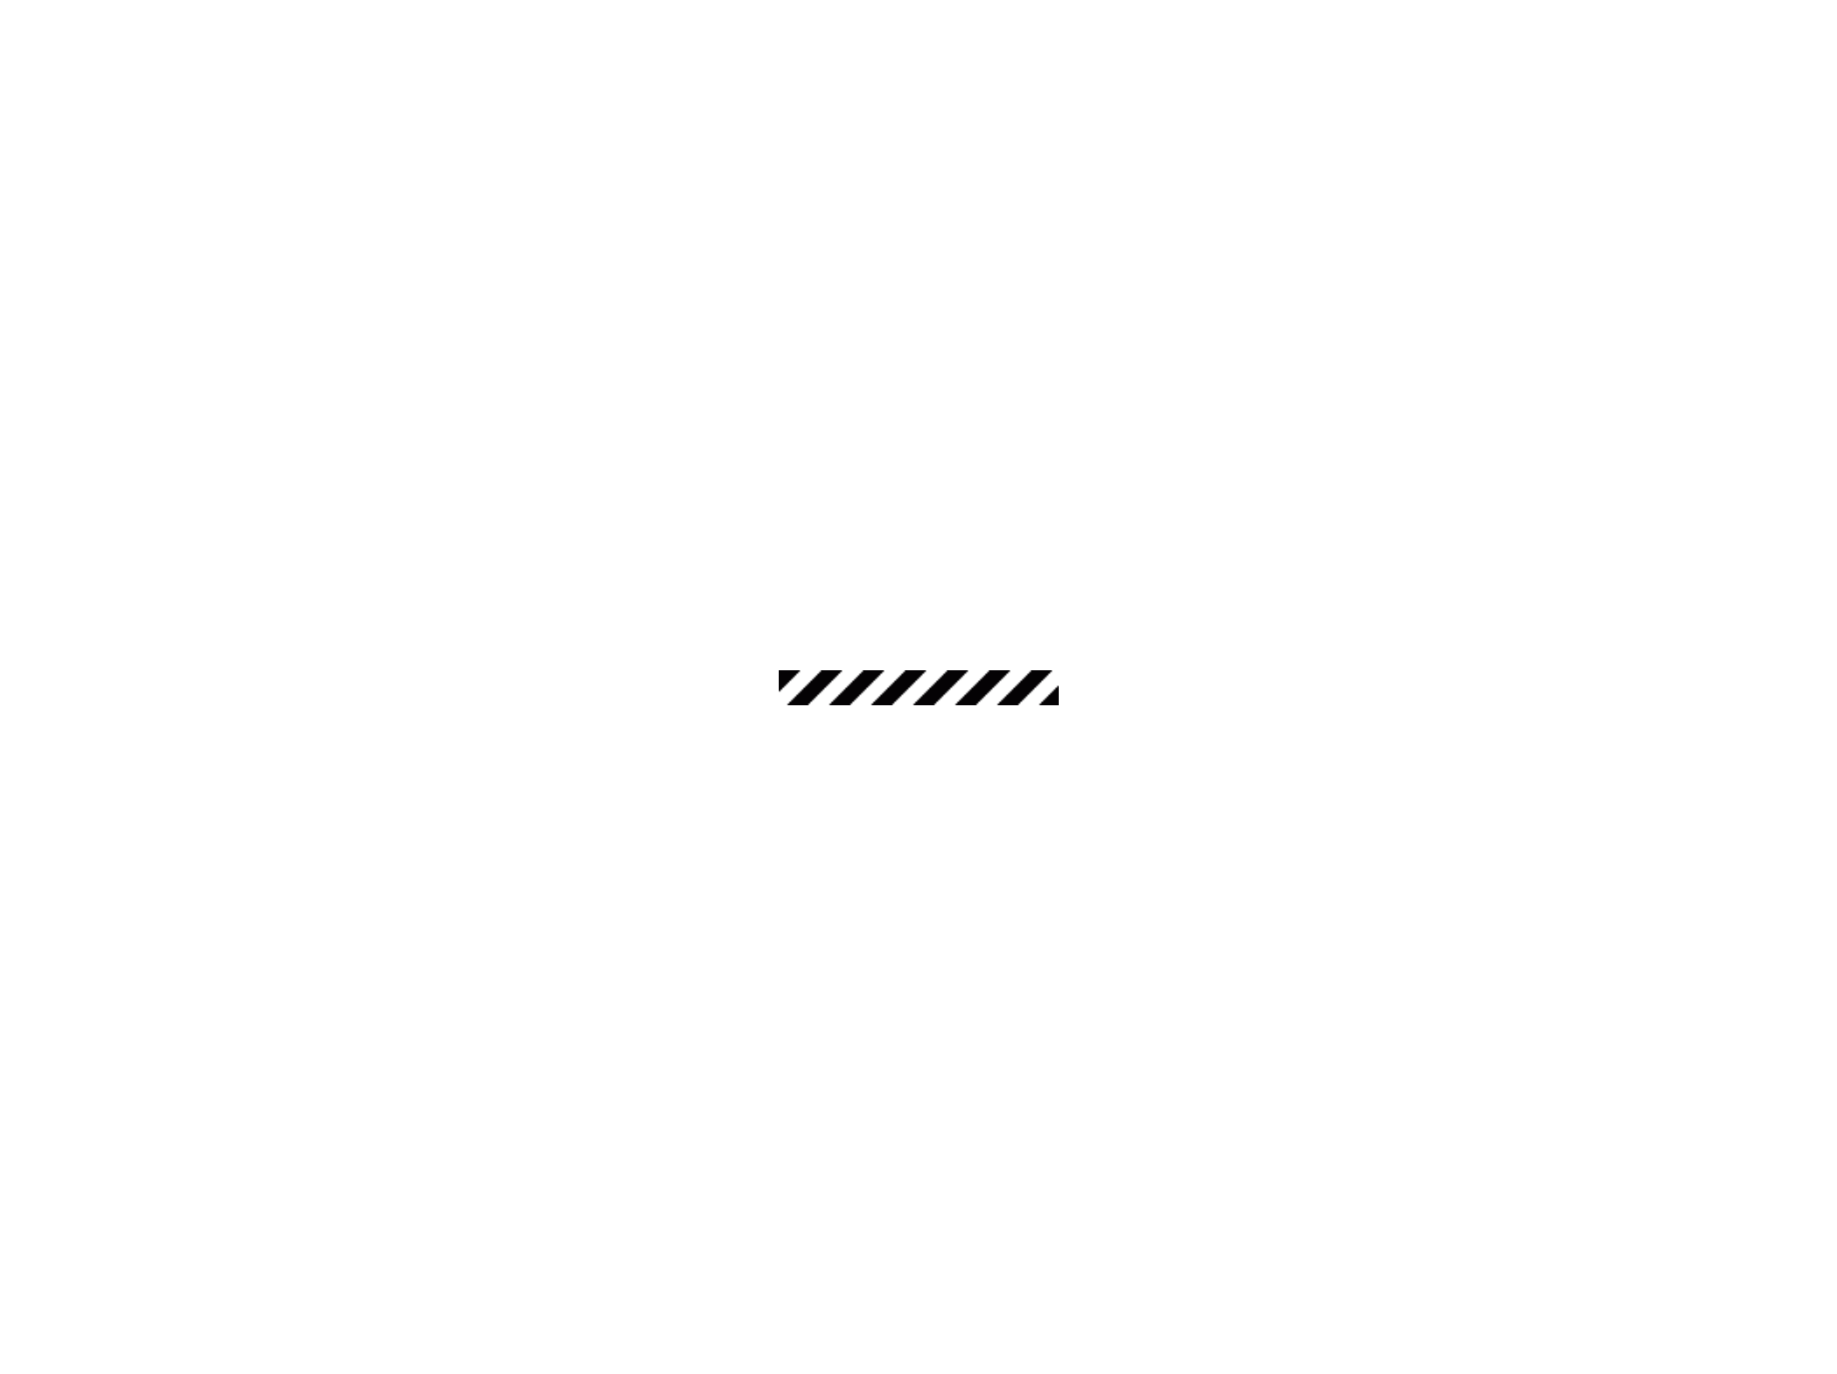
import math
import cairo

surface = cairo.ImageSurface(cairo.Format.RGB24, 1837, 1374)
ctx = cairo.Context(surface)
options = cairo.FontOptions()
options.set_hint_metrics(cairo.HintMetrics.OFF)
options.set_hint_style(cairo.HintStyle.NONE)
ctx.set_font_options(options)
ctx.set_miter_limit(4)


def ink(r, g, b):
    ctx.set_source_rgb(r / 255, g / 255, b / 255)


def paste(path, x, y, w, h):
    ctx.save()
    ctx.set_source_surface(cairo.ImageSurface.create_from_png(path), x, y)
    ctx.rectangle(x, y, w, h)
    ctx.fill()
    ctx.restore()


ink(255, 255, 255)
ctx.paint()
paste("pic1.png", 778, 670, 281, 36)
surface.write_to_png("screenshot.png")
